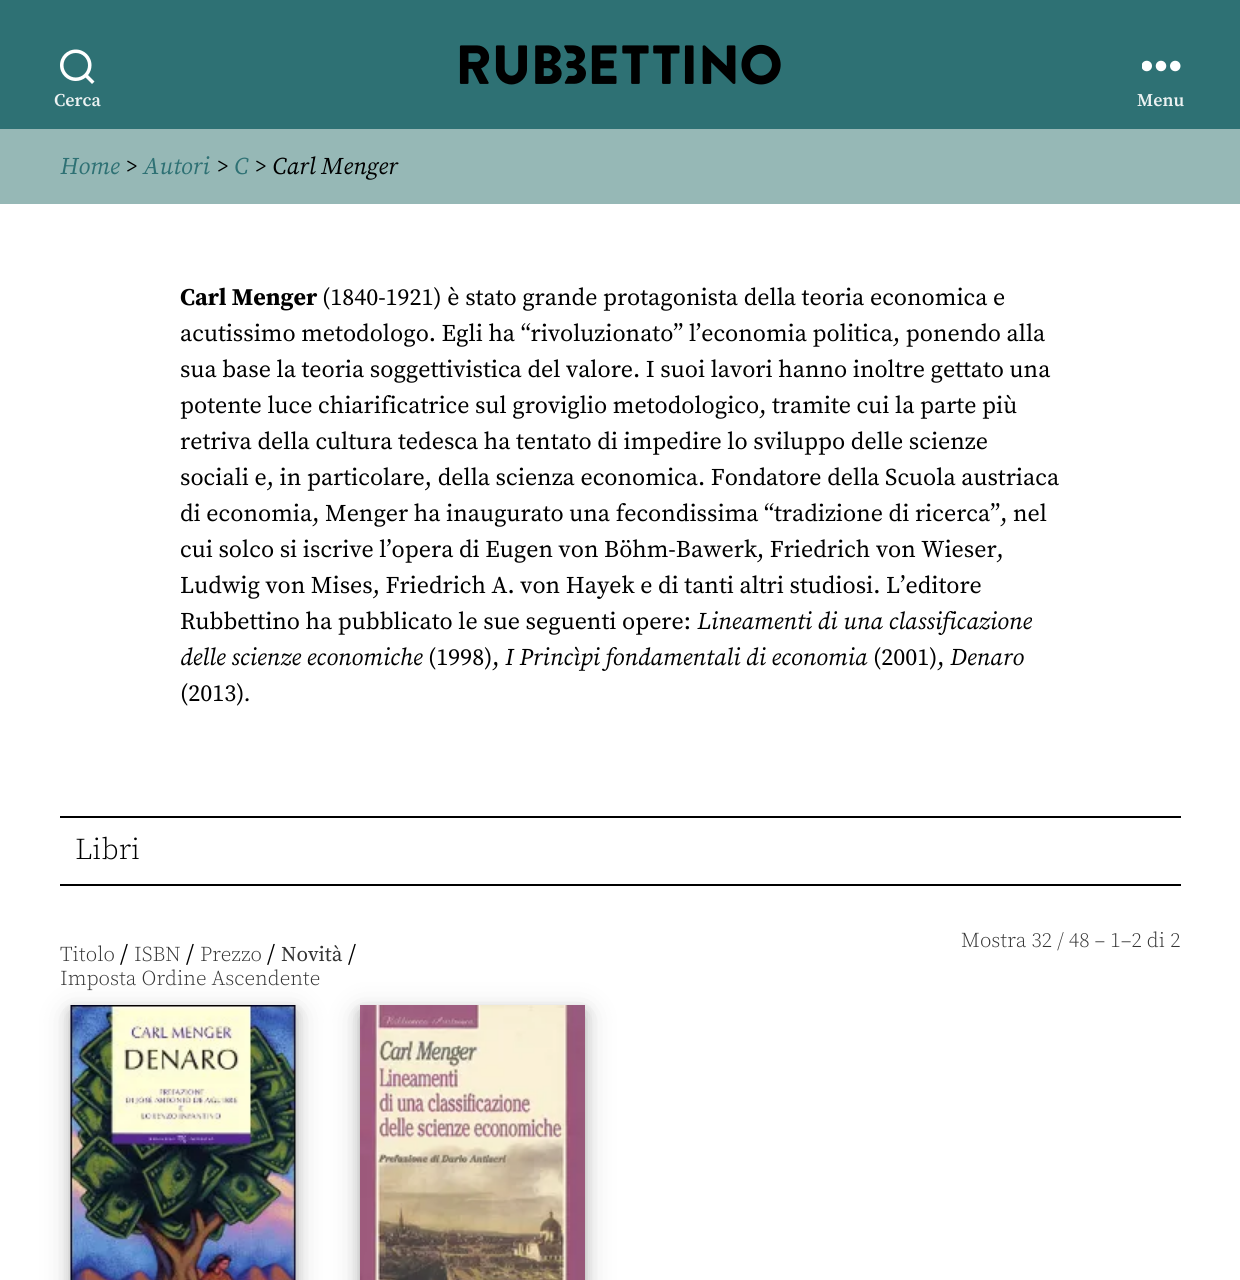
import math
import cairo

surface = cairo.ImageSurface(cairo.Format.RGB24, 1240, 1280)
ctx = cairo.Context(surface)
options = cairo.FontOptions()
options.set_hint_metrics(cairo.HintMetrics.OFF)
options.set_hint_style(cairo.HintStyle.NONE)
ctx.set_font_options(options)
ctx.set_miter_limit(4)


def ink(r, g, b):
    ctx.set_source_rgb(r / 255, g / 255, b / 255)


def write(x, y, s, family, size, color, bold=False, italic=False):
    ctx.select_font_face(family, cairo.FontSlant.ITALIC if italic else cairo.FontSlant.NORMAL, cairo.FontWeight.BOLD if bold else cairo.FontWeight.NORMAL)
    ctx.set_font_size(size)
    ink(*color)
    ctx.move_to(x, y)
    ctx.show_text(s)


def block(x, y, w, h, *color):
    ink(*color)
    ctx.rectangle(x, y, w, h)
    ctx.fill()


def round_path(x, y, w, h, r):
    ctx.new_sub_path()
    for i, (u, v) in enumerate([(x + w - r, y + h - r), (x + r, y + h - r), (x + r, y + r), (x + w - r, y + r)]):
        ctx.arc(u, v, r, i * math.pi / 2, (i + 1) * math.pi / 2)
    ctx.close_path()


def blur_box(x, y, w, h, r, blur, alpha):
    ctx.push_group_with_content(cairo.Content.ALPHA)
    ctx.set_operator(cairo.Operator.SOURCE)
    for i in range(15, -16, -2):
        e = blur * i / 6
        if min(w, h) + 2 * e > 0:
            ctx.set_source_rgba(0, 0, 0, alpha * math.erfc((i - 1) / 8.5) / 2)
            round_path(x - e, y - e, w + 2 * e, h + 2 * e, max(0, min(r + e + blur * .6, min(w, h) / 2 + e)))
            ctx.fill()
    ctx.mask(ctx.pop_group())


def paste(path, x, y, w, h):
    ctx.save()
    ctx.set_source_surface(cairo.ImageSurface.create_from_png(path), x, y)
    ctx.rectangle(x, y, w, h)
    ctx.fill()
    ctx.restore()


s1 = dict(family="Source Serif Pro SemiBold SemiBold", size=18, color=(236, 242, 242))
s2 = dict(family="Source Serif Pro", size=24, color=(46, 113, 116), italic=True)
s3 = dict(family="Source Serif Pro", size=24, color=(0, 0, 0), italic=True)
s4 = dict(family="Source Serif Pro", size=24, color=(0, 0, 0), bold=True)
s5 = dict(family="Source Serif Pro", size=24, color=(0, 0, 0))
s6 = dict(family="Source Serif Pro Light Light", size=30, color=(0, 0, 0))
s7 = dict(family="Source Serif Pro Light Light", size=21, color=(51, 51, 51))
s8 = dict(family="Source Serif Pro", size=21, color=(51, 51, 51))

ink(255, 255, 255)
ctx.paint()
block(0, 0, 1240, 129, 46, 113, 116)
paste("pic1.png", 459, 44, 322, 41)
paste("pic2.png", 60, 49, 35, 35)
write(54, 106, "Cerca", **s1)
paste("pic3.png", 1142, 60, 39, 12)
write(1137, 106, "Menu", **s1)
block(0, 129, 1240, 75, 150, 184, 182)
write(60, 174, "Home", **s2)
write(125, 174, ">", **s3)
write(143, 174, "Autori", **s2)
write(216, 174, ">", **s3)
write(234, 174, "C", **s2)
write(254, 174, "> Carl Menger", **s3)
write(180, 305, "Carl Menger", **s4)
write(322, 305, "(1840-1921) è stato grande protagonista della teoria economica e", **s5)
write(180, 341, "acutissimo metodologo. Egli ha “rivoluzionato” l’economia politica, ponendo alla", **s5)
write(180, 377, "sua base la teoria soggettivistica del valore. I suoi lavori hanno inoltre gettato una", **s5)
write(180, 413, "potente luce chiarificatrice sul groviglio metodologico, tramite cui la parte più", **s5)
write(180, 449, "retriva della cultura tedesca ha tentato di impedire lo sviluppo delle scienze", **s5)
write(180, 485, "sociali e, in particolare, della scienza economica. Fondatore della Scuola austriaca", **s5)
write(180, 521, "di economia, Menger ha inaugurato una fecondissima “tradizione di ricerca”, nel", **s5)
write(180, 557, "cui solco si iscrive l’opera di Eugen von Böhm-Bawerk, Friedrich von Wieser,", **s5)
write(180, 593, "Ludwig von Mises, Friedrich A. von Hayek e di tanti altri studiosi. L’editore", **s5)
write(180, 629, "Rubbettino ha pubblicato le sue seguenti opere:", **s5)
write(697, 629, "Lineamenti di una classificazione", **s3)
write(180, 665, "delle scienze economiche", **s3)
write(428, 665, "(1998),", **s5)
write(505, 665, "I Princìpi fondamentali di economia", **s3)
write(873, 665, "(2001),", **s5)
write(950, 665, "Denaro", **s3)
write(180, 701, "(2013)", **s5)
write(244, 701, ".", **s3)
block(60, 816, 1121, 2, 0, 0, 0)
block(60, 884, 1121, 2, 0, 0, 0)
write(75, 859, "Libri", **s6)
write(961, 947, "Mostra 32 / 48 – 1–2 di 2", **s7)
write(60, 961, "Titolo", **s7)
write(120, 961, "/", **s5)
write(134, 961, "ISBN", **s7)
write(186, 961, "/", **s5)
write(200, 961, "Prezzo", **s7)
write(267, 961, "/", **s5)
write(281, 961, "Novità", **s8)
write(348, 961, "/", **s5)
write(60, 985, "Imposta Ordine Ascendente", **s7)
ink(0, 0, 0)
blur_box(71, 1014, 225, 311, 0, 15, 0.19)
blur_box(71, 1011, 225, 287, 0, 6, 0.2)
paste("pic4.png", 70, 1005, 226, 275)
blur_box(360, 1014, 225, 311, 0, 15, 0.19)
blur_box(360, 1011, 225, 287, 0, 6, 0.2)
paste("pic5.png", 360, 1005, 225, 275)
surface.write_to_png("screenshot.png")
